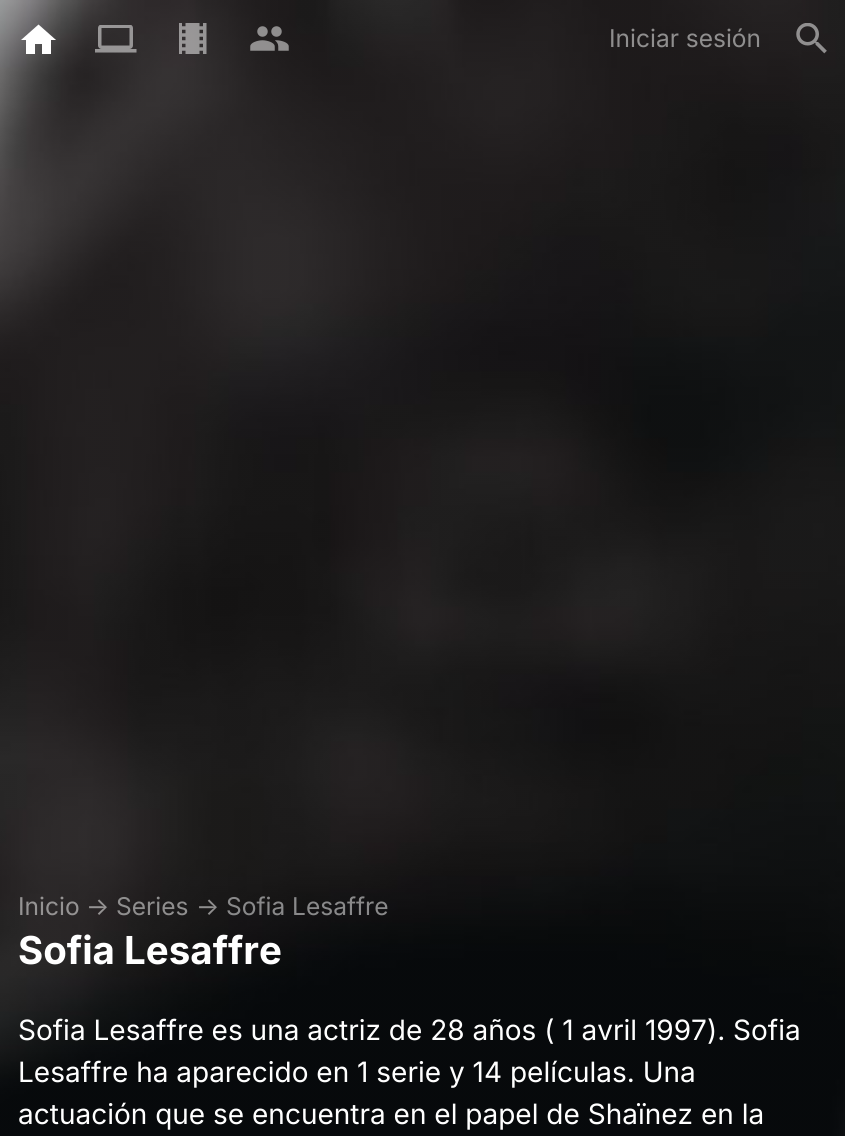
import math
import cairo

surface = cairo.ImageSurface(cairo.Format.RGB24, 845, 1136)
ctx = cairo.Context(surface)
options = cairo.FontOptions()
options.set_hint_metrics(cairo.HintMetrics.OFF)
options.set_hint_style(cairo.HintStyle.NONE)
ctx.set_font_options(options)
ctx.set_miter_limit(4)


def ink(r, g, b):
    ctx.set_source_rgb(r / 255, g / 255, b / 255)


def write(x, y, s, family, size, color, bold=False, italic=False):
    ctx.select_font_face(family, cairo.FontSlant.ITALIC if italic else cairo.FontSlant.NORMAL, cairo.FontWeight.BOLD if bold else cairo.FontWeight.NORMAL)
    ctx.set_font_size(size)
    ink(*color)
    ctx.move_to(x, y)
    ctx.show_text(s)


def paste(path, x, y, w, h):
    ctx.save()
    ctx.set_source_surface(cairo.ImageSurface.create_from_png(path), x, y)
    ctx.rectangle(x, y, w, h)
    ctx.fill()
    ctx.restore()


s1 = dict(family="Inter", size=24.5, color=(143, 142, 142))
s2 = dict(family="Inter", size=24.5, color=(149, 147, 147))
s3 = dict(family="Inter", size=24.5, color=(137, 137, 138))
s4 = dict(family="Inter", size=38.5, color=(255, 255, 255), bold=True)
s5 = dict(family="Inter", size=28, color=(255, 255, 255))

ink(255, 255, 255)
ctx.paint()
paste("pic1.png", 0, 0, 845, 1136)
ink(255, 255, 255)
ctx.new_path()
ctx.move_to(35, 54)
ctx.line_to(35, 44)
ctx.line_to(42, 44)
ctx.line_to(42, 54)
ctx.line_to(51, 54)
ctx.line_to(51, 40)
ctx.line_to(56, 40)
ctx.line_to(38.5, 24.5)
ctx.line_to(21, 40)
ctx.line_to(26, 40)
ctx.line_to(26, 54)
ctx.close_path()
ctx.fill()
paste("pic2.png", 95, 25, 42, 28)
paste("pic3.png", 179, 23, 28, 31)
paste("pic4.png", 250, 26, 39, 25)
write(609, 47, "Iniciar sesión", **s1)
paste("pic5.png", 796, 23, 31, 31)
write(18, 915, "Inicio", **s2)
write(86, 915, "→", **s2)
write(116, 915, "Series", **s1)
write(196, 915, "→", **s1)
write(226, 915, "Sofia Lesaffre", **s3)
write(18, 964, "Sofia Lesaffre", **s4)
write(18, 1040, "Sofia Lesaffre es una actriz de 28 años ( 1 avril 1997). Sofia", **s5)
write(18, 1082, "Lesaffre ha aparecido en 1 serie y 14 películas. Una", **s5)
write(18, 1124, "actuación que se encuentra en el papel de Shaïnez en la", **s5)
surface.write_to_png("screenshot.png")
